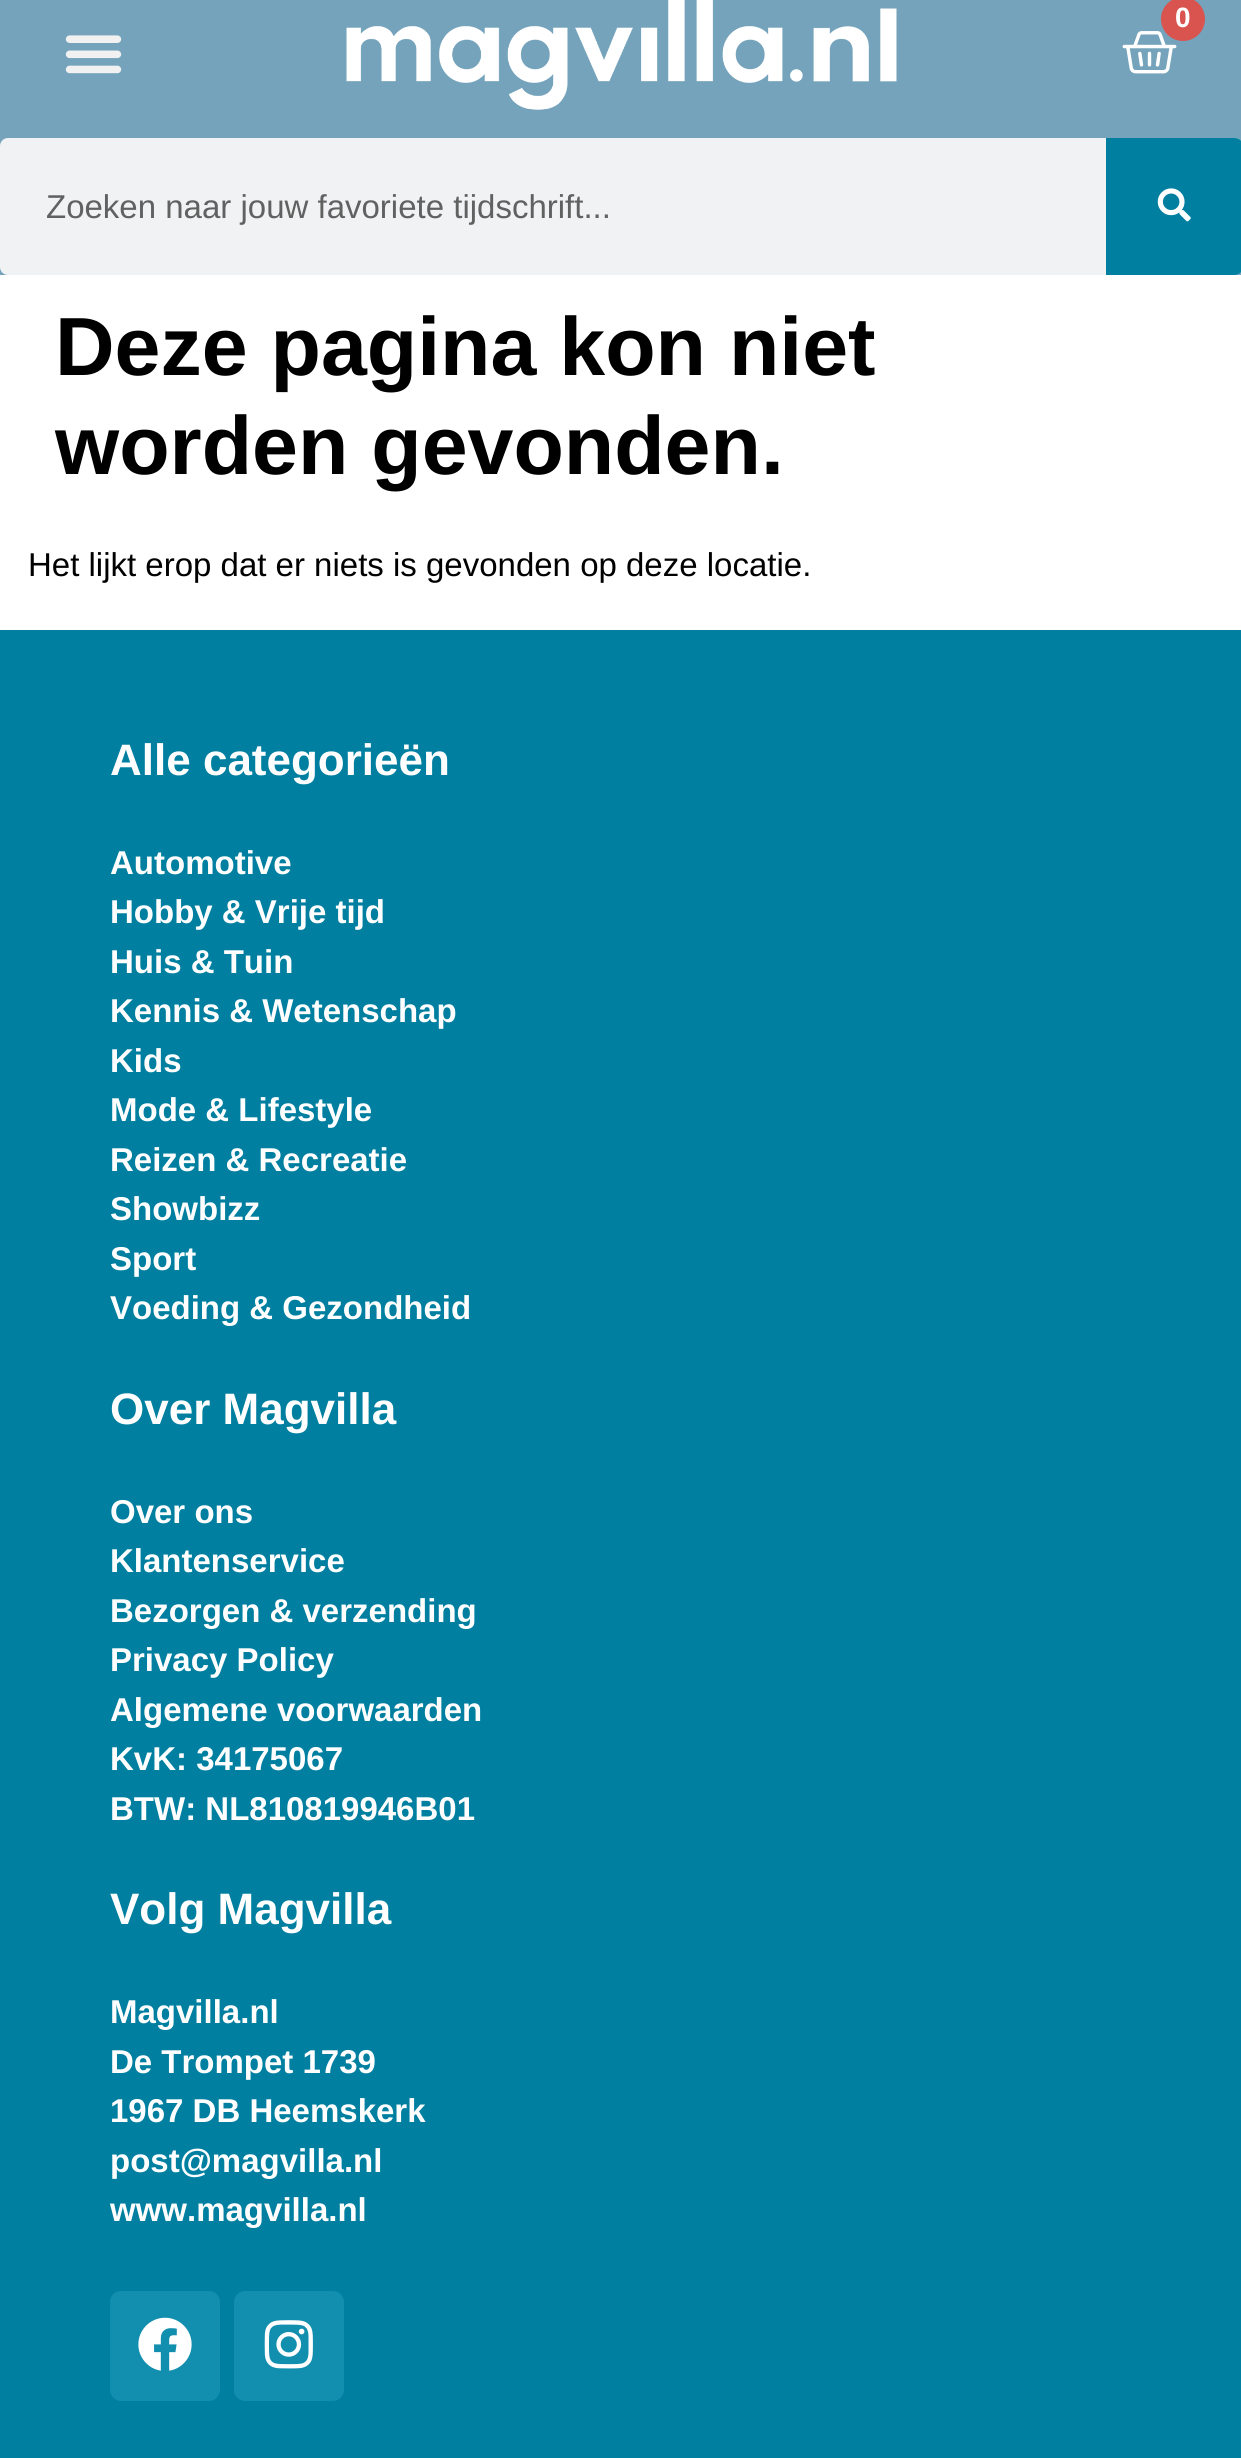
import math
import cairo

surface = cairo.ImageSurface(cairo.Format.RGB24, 1241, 2458)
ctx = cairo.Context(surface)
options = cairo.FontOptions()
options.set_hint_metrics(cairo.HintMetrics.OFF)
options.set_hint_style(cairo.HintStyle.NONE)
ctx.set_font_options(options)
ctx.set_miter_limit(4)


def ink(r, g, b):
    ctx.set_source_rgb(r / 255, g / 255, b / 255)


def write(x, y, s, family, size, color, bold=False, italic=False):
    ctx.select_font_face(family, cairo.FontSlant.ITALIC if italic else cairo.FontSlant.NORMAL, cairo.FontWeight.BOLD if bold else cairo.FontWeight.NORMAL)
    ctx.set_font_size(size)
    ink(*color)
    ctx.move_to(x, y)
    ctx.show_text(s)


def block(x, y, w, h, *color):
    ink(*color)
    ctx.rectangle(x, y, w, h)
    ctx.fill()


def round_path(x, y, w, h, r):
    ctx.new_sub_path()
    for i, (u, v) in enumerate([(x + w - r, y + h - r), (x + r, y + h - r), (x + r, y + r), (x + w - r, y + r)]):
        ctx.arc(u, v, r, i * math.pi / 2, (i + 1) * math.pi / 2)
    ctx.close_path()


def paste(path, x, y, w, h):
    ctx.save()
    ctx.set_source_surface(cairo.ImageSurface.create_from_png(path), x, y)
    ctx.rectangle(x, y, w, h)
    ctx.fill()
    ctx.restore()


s1 = dict(family="Liberation Sans", size=28, color=(255, 255, 255), bold=True)
s2 = dict(family="Liberation Sans", size=33, color=(96, 97, 97))
s3 = dict(family="Liberation Sans", size=82.5, color=(0, 0, 0), bold=True)
s4 = dict(family="Liberation Sans", size=33, color=(0, 0, 0))
s5 = dict(family="Liberation Sans", size=44, color=(255, 255, 255), bold=True)
s6 = dict(family="Liberation Sans", size=33, color=(255, 255, 255), bold=True)

ink(255, 255, 255)
ctx.paint()
block(0, 0, 1241, 275, 116, 163, 187)
paste("pic1.png", 346, 0, 551, 110)
paste("pic2.png", 1122, 31, 55, 43)
ink(217, 83, 79)
ctx.arc(1183, 19, 22, 0, 2 * math.pi)
ctx.fill()
write(1175, 27, "0", **s1)
paste("pic3.png", 65, 35, 57, 39)
ink(241, 242, 243)
round_path(0, 138, 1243, 137, 8)
ctx.fill()
write(46, 218, "Zoeken naar jouw favoriete tijdschrift...", **s2)
ink(0, 127, 160)
ctx.new_path()
ctx.move_to(1106, 138)
ctx.line_to(1235, 138)
ctx.curve_to(1239.5, 138, 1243, 141.5, 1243, 146)
ctx.line_to(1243, 267)
ctx.curve_to(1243, 271.5, 1239.5, 275, 1235, 275)
ctx.line_to(1106, 275)
ctx.close_path()
ctx.fill()
paste("pic4.png", 1157, 188, 34, 34)
write(55, 375, "Deze pagina kon niet", **s3)
write(55, 474, "worden gevonden.", **s3)
write(28, 576, "Het lijkt erop dat er niets is gevonden op deze locatie.", **s4)
block(0, 630, 1241, 1828, 0, 127, 160)
write(110, 775, "Alle categorieën", **s5)
write(110, 874, "Automotive", **s6)
write(110, 923, "Hobby & Vrije tijd", **s6)
write(110, 973, "Huis & Tuin", **s6)
write(110, 1022, "Kennis & Wetenschap", **s6)
write(110, 1072, "Kids", **s6)
write(110, 1121, "Mode & Lifestyle", **s6)
write(110, 1171, "Reizen & Recreatie", **s6)
write(110, 1220, "Showbizz", **s6)
write(110, 1270, "Sport", **s6)
write(110, 1319, "Voeding & Gezondheid", **s6)
write(110, 1424, "Over Magvilla", **s5)
write(110, 1523, "Over ons", **s6)
write(110, 1572, "Klantenservice", **s6)
write(110, 1622, "Bezorgen & verzending", **s6)
write(110, 1671, "Privacy Policy", **s6)
write(110, 1721, "Algemene voorwaarden", **s6)
write(110, 1770, "KvK: 34175067", **s6)
write(110, 1820, "BTW: NL810819946B01", **s6)
write(110, 1924, "Volg Magvilla", **s5)
write(110, 2023, "Magvilla.nl", **s6)
write(110, 2073, "De Trompet 1739", **s6)
write(110, 2122, "1967 DB Heemskerk", **s6)
write(110, 2172, "post@magvilla.nl", **s6)
write(110, 2221, "www.magvilla.nl", **s6)
ink(18, 142, 174)
round_path(110, 2291, 110, 110, 11)
ctx.fill()
paste("pic5.png", 138, 2317, 54, 54)
round_path(234, 2291, 110, 110, 11)
ctx.fill()
paste("pic6.png", 264, 2320, 49, 49)
surface.write_to_png("screenshot.png")
